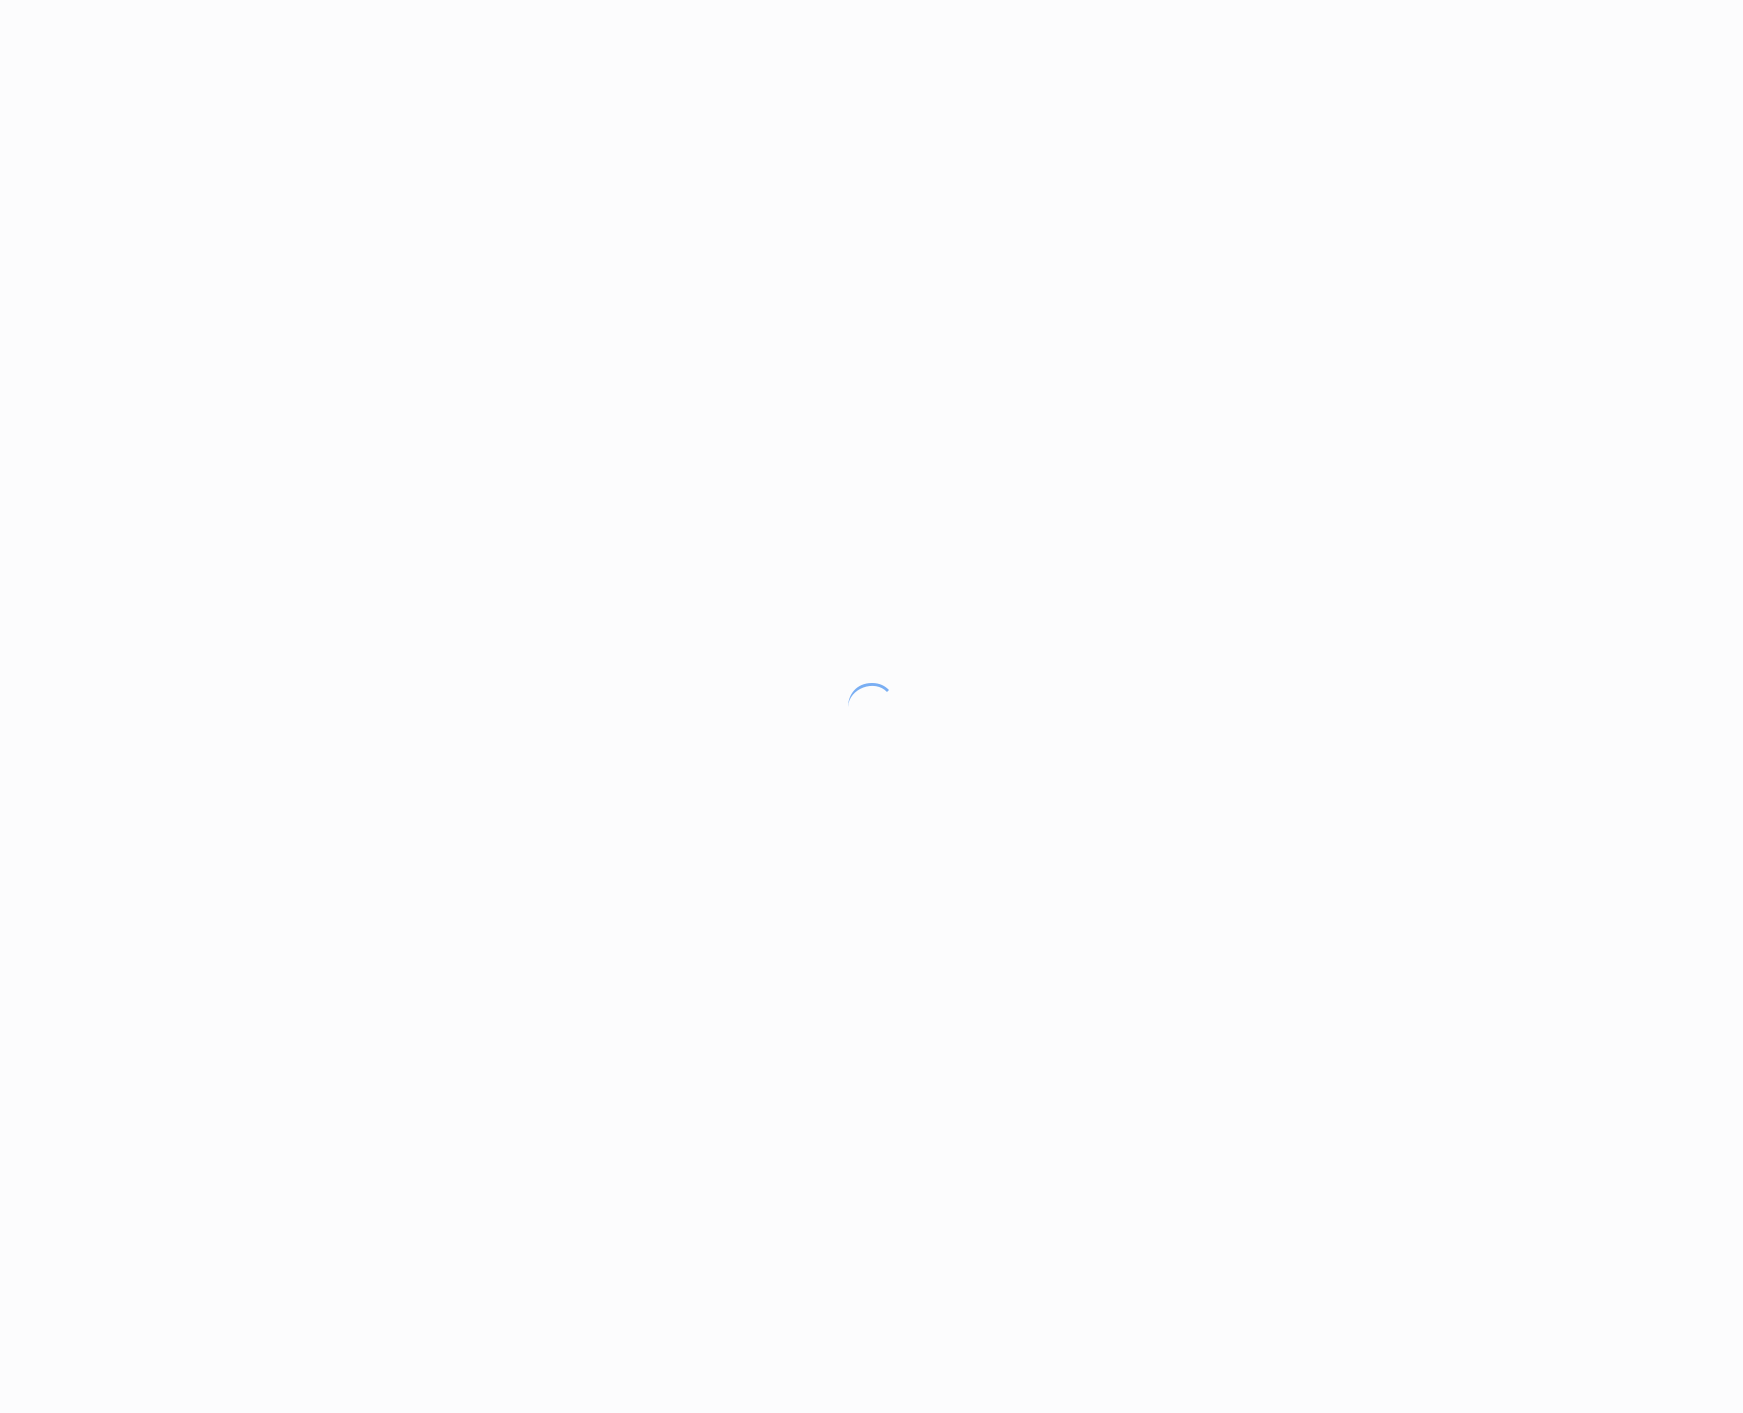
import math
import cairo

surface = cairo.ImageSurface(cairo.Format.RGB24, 1743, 1413)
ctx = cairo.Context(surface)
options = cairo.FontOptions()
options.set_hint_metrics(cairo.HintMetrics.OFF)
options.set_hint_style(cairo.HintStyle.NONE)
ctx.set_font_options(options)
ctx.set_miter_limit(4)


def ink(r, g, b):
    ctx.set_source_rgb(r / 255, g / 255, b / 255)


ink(252, 252, 253)
ctx.paint()
ink(121, 174, 243)
ctx.new_path()
ctx.move_to(872, 683)
ctx.curve_to(856, 683, 848, 695, 848, 707)
ctx.curve_to(849, 688, 875, 679, 887, 692)
ctx.line_to(889, 690)
ctx.curve_to(885, 686, 880, 683, 872, 683)
ctx.close_path()
ctx.fill()
surface.write_to_png("screenshot.png")
